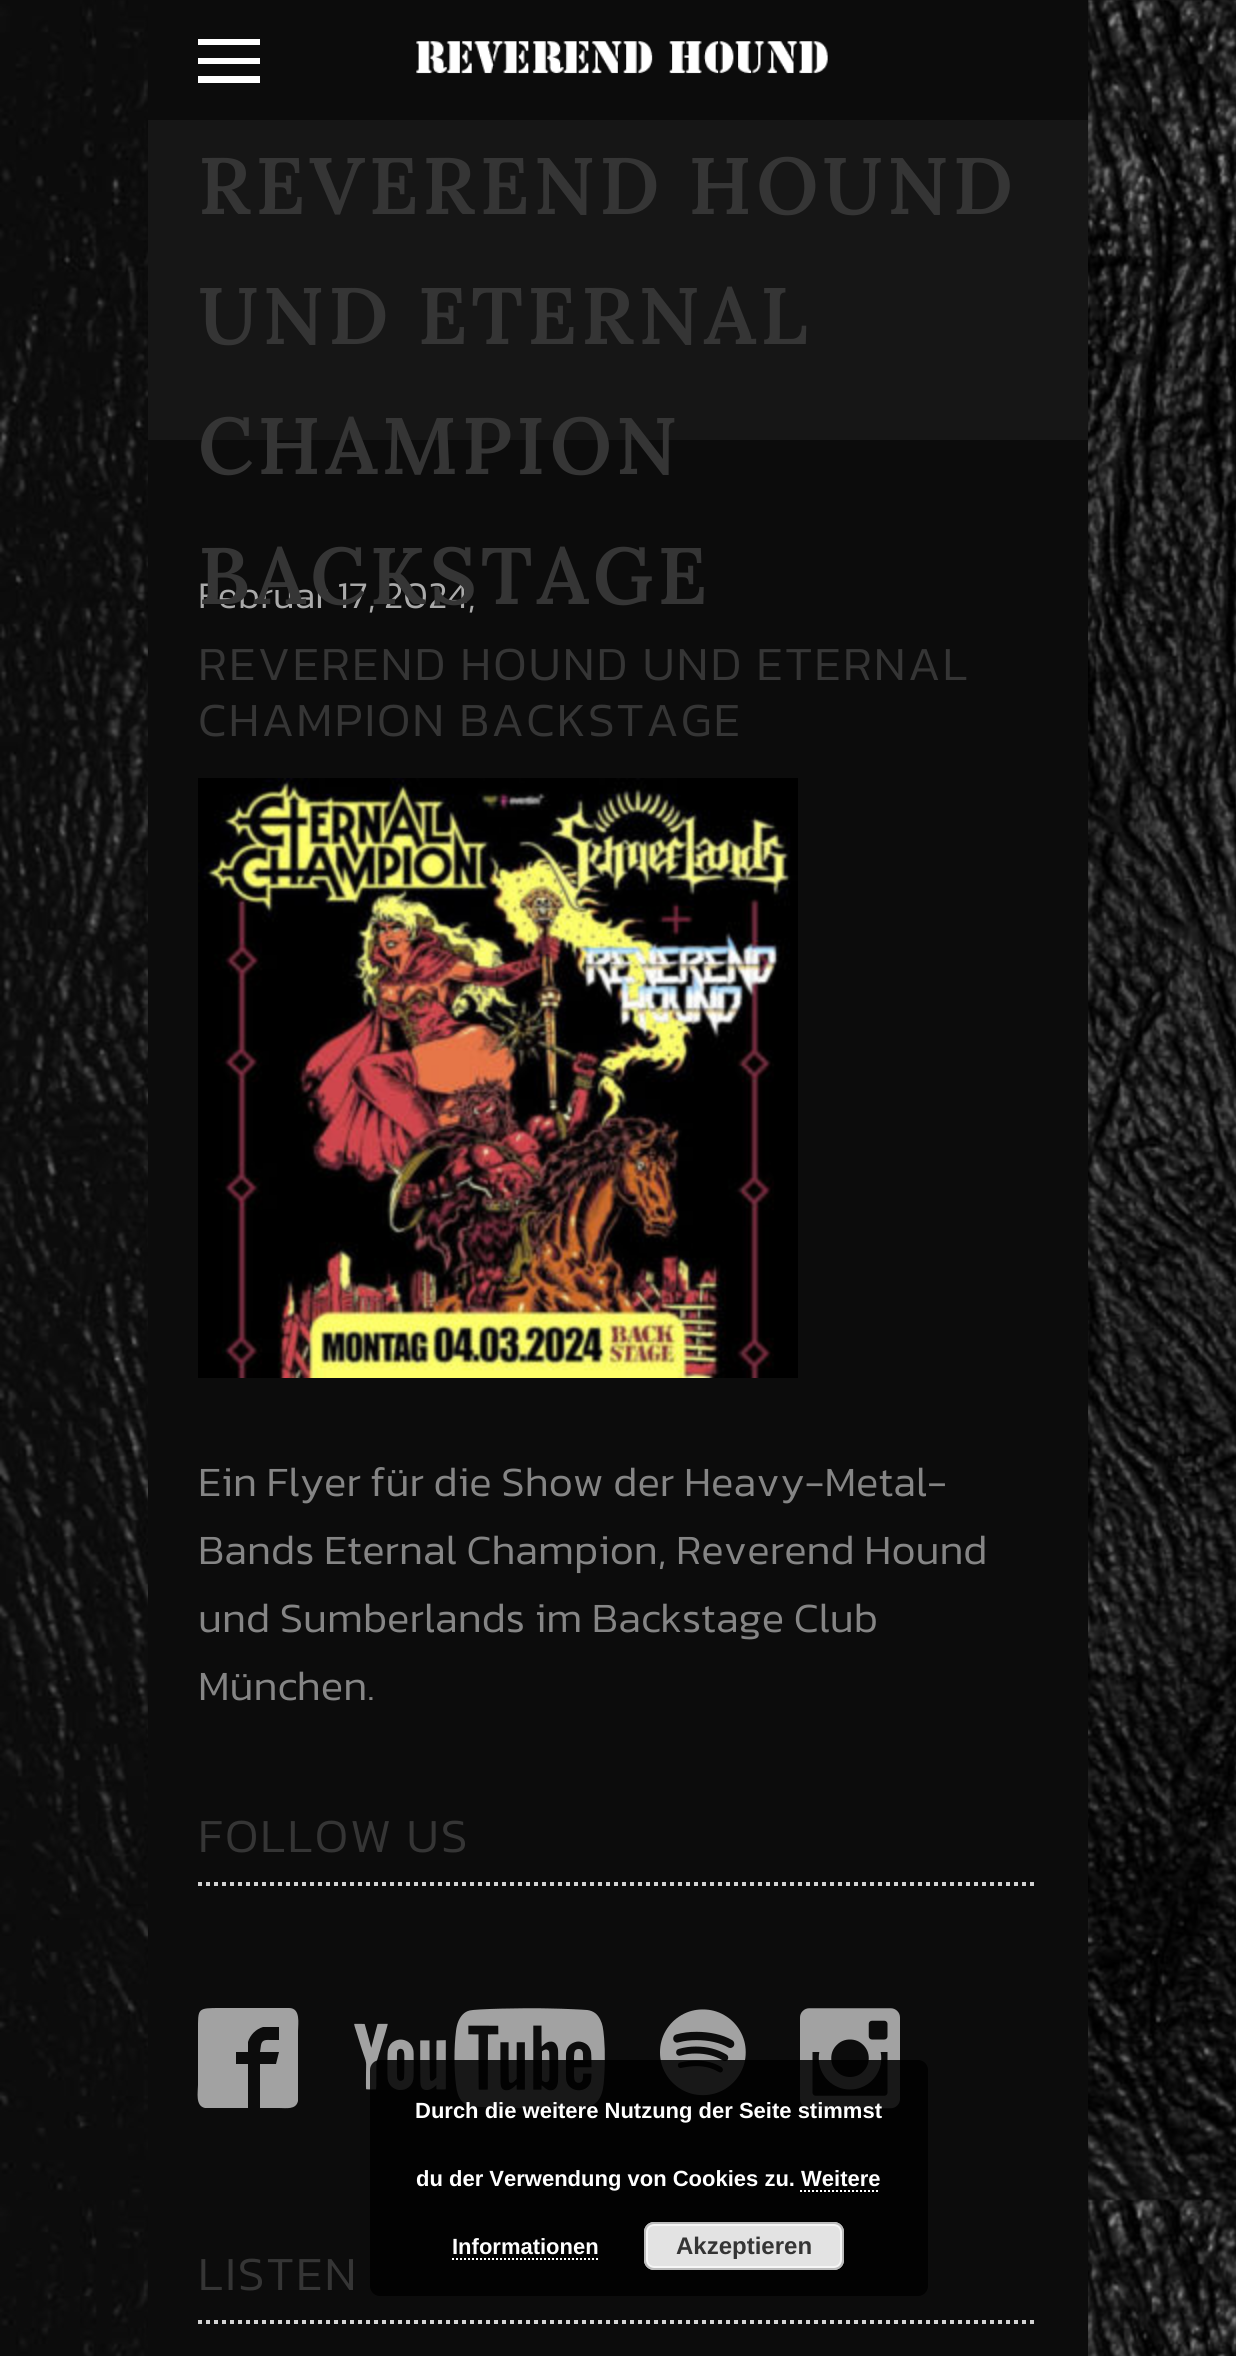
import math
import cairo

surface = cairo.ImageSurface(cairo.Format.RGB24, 1236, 2356)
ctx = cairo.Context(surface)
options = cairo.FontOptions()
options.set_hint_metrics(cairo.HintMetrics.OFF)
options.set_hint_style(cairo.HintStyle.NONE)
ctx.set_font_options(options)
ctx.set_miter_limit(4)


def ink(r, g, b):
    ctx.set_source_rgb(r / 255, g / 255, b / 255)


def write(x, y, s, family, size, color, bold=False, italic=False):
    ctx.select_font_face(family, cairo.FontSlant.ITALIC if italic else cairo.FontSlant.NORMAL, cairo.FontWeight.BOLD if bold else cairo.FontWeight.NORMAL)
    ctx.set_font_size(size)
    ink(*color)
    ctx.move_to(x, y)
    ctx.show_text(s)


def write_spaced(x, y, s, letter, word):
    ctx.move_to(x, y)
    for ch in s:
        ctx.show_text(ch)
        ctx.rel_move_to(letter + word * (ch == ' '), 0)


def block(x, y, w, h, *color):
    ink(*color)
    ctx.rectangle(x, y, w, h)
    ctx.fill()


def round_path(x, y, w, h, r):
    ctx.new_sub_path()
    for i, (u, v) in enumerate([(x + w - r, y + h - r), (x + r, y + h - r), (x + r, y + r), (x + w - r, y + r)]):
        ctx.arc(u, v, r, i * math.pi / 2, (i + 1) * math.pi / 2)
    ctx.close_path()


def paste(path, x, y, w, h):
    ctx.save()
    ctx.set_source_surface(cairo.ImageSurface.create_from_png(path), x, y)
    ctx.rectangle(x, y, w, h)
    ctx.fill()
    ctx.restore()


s1 = dict(family="Kanit Light", size=38, color=(170, 170, 170))
s2 = dict(family="Kanit Light", size=42, color=(133, 133, 133))
s3 = dict(family="Liberation Sans", size=22, color=(255, 255, 255), bold=True)
s4 = dict(family="Liberation Sans", size=24, color=(53, 53, 53), bold=True)

ink(255, 255, 255)
ctx.paint()
paste("pic1.png", 0, 0, 1236, 2356)
block(148, 0, 940, 2356, 12, 12, 12)
ink(255, 255, 255)
ctx.new_path()
ctx.move_to(198, 64)
ctx.line_to(198, 58)
ctx.line_to(260, 58)
ctx.line_to(260, 64)
ctx.close_path()
ctx.move_to(198, 45)
ctx.line_to(198, 39)
ctx.line_to(260, 39)
ctx.line_to(260, 45)
ctx.close_path()
ctx.move_to(198, 83)
ctx.line_to(198, 76)
ctx.line_to(260, 76)
ctx.line_to(260, 83)
ctx.close_path()
ctx.fill()
paste("pic2.png", 416, 41, 412, 33)
block(148, 120, 940, 320, 22, 22, 22)
ctx.select_font_face("Lora SemiBold")
ctx.set_font_size(80)
ink(53, 53, 53)
write_spaced(198, 214, "REVEREND HOUND", 4, 0)
write_spaced(198, 344, "UND ETERNAL", 4, 0)
write_spaced(198, 474, "CHAMPION", 4, 0)
write(198, 608, "Februar 17, 2024,", **s1)
ctx.select_font_face("Lora SemiBold")
ctx.set_font_size(80)
ink(53, 53, 53)
write_spaced(198, 604, "BACKSTAGE", 4, 0)
ctx.select_font_face("Kanit Light")
ctx.set_font_size(48)
write_spaced(198, 680, "REVEREND HOUND UND ETERNAL", 2, 0)
write_spaced(198, 736, "CHAMPION BACKSTAGE", 2, 0)
paste("pic3.png", 198, 778, 600, 600)
write(198, 1496, "Ein Flyer für die Show der Heavy-Metal-", **s2)
write(198, 1564, "Bands Eternal Champion, Reverend Hound", **s2)
write(198, 1632, "und Sumberlands im Backstage Club", **s2)
write(198, 1700, "München.", **s2)
ctx.new_path()
ctx.move_to(198, 1884)
ctx.line_to(1038, 1884)
ink(210, 210, 210)
ctx.set_line_width(4)
ctx.set_dash([4, 4])
ctx.stroke()
ctx.set_font_size(48)
ink(53, 53, 53)
write_spaced(198, 1852, "FOLLOW US", 2, 0)
ink(162, 162, 162)
ctx.new_path()
ctx.move_to(289, 2008)
ctx.line_to(221, 2008)
ctx.curve_to(197, 2008, 198, 2008, 198, 2031)
ctx.line_to(198, 2085)
ctx.curve_to(198, 2092, 195, 2106, 205, 2108)
ctx.line_to(248, 2108)
ctx.line_to(248, 2064)
ctx.line_to(236, 2064)
ctx.line_to(236, 2052)
ctx.line_to(248, 2052)
ctx.line_to(248, 2042)
ctx.curve_to(250, 2035, 256, 2029, 263, 2027)
ctx.line_to(279, 2027)
ctx.line_to(279, 2040)
ctx.line_to(271, 2040)
ctx.curve_to(267, 2040, 262, 2039, 261, 2045)
ctx.line_to(260, 2052)
ctx.line_to(279, 2052)
ctx.line_to(276, 2064)
ctx.line_to(260, 2064)
ctx.line_to(260, 2108)
ctx.line_to(279, 2108)
ctx.curve_to(286, 2108, 296, 2110, 298, 2101)
ctx.line_to(298, 2031)
ctx.curve_to(298, 2024, 301, 2008, 289, 2008)
ctx.close_path()
ctx.fill()
paste("pic4.png", 354, 2008, 251, 101)
paste("pic5.png", 660, 2009, 86, 87)
paste("pic6.png", 800, 2008, 100, 101)
ctx.new_path()
ctx.move_to(198, 2322)
ctx.line_to(1038, 2322)
ink(210, 210, 210)
ctx.stroke()
ink(53, 53, 53)
write_spaced(198, 2290, "LISTEN", 2, 0)
ctx.set_source_rgba(0, 0, 0, 0.85)
round_path(370, 2060, 558, 236, 10)
ctx.fill()
write(415, 2118, "Durch die weitere Nutzung der Seite stimmst", **s3)
write(416, 2186, "du der Verwendung von Cookies zu. Weitere", **s3)
write(452, 2254, "Informationen", **s3)
ctx.new_path()
ctx.move_to(800, 2191)
ctx.line_to(880, 2191)
ctx.set_line_width(2)
ctx.set_dash([2, 2])
ctx.stroke()
ctx.new_path()
ctx.move_to(452, 2259)
ctx.line_to(598, 2259)
ctx.stroke()
ink(227, 227, 227)
round_path(644, 2222, 200, 48, 10)
ctx.fill()
round_path(647, 2225, 194, 42, 7)
ink(246, 246, 246)
ctx.set_dash([])
ctx.stroke()
round_path(645, 2223, 198, 46, 9)
ink(187, 187, 187)
ctx.stroke()
write(676, 2254, "Akzeptieren", **s4)
surface.write_to_png("screenshot.png")
